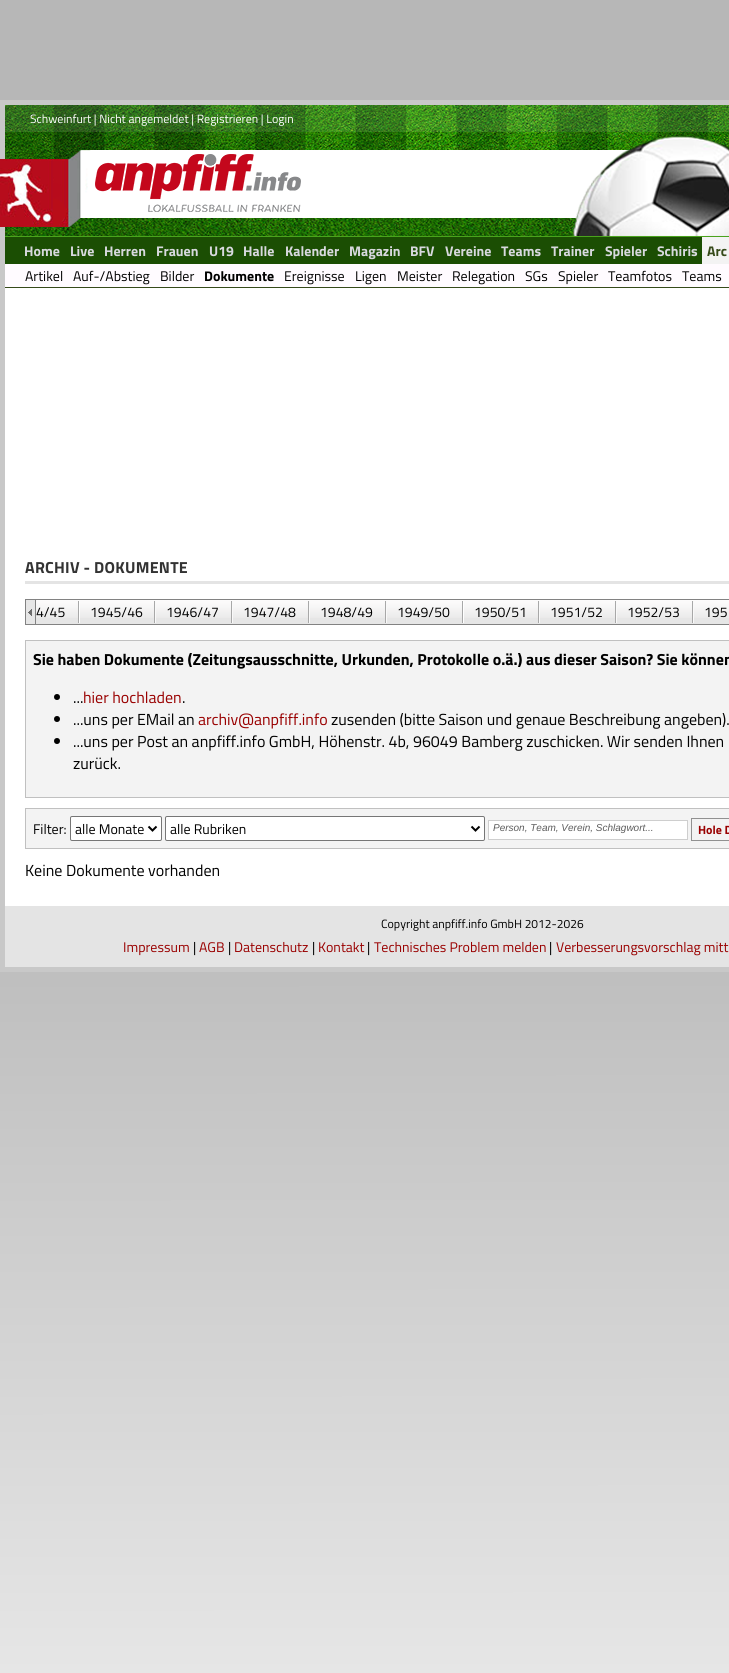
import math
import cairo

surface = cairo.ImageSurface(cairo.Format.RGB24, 729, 1673)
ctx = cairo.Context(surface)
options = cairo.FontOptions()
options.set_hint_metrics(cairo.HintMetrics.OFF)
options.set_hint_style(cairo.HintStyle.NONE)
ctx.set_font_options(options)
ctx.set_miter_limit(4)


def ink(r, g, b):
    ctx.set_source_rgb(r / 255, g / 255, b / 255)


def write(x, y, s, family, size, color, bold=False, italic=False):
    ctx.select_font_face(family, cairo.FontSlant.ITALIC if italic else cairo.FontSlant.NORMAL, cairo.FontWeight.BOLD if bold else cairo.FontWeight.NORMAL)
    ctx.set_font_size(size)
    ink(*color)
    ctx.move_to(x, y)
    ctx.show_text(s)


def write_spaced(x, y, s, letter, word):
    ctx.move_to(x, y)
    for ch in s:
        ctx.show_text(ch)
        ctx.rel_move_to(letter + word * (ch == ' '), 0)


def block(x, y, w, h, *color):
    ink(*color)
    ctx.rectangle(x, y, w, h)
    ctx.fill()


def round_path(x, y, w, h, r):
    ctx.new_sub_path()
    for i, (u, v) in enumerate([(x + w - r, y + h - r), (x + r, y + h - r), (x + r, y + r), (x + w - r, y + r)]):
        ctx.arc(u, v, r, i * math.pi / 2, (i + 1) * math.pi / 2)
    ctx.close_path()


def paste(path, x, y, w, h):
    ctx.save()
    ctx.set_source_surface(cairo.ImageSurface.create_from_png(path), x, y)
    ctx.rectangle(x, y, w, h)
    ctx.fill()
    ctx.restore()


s1 = dict(family="Titillium Web", size=12, color=(255, 255, 255))
s2 = dict(family="Titillium Web", size=14, color=(216, 217, 223), bold=True)
s3 = dict(family="Titillium Web", size=14, color=(54, 74, 26), bold=True)
s4 = dict(family="Titillium Web", size=14, color=(0, 0, 0))
s5 = dict(family="Titillium Web", size=14, color=(0, 0, 0), bold=True)
s6 = dict(family="Titillium Web", size=16, color=(0, 0, 0), bold=True)
s7 = dict(family="Titillium Web", size=16, color=(153, 0, 0))
s8 = dict(family="Titillium Web", size=16, color=(0, 0, 0))
s9 = dict(family="Liberation Sans", size=10, color=(92, 92, 92), italic=True)
s10 = dict(family="Titillium Web", size=12, color=(153, 0, 0), bold=True)
s11 = dict(family="Titillium Web", size=12, color=(0, 0, 0))
s12 = dict(family="Titillium Web", size=14, color=(153, 0, 0))

ink(255, 255, 255)
ctx.paint()
gradient = cairo.LinearGradient(364, 0, 365, 1673)
gradient.add_color_stop_rgba(0, 0.718, 0.718, 0.718, 1)
gradient.add_color_stop_rgba(0.5, 0.718, 0.718, 0.718, 1)
gradient.add_color_stop_rgba(1, 0.902, 0.902, 0.902, 1)
ctx.set_source(gradient)
ctx.rectangle(0, 0, 729, 1673)
ctx.fill()
block(5, 288, 724, 618, 255, 255, 255)
ctx.rectangle(2.5, 102.5, 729, 867)
ink(200, 200, 200)
ctx.set_line_width(5)
ctx.stroke()
paste("pic1.png", 5, 105, 724, 27)
write(30, 123, "Schweinfurt | Nicht angemeldet | Registrieren | Login", **s1)
paste("pic2.png", 0, 132, 729, 105)
paste("pic3.png", 95, 154, 206, 58)
block(5, 237, 697, 27, 27, 78, 3)
write(24, 256, "Home", **s2)
write(70, 256, "Live", **s2)
write(104, 256, "Herren", **s2)
write(156, 256, "Frauen", **s2)
write(209, 256, "U19", **s2)
write(243, 256, "Halle", **s2)
write(285, 256, "Kalender", **s2)
write(349, 256, "Magazin", **s2)
write(410, 256, "BFV", **s2)
write(445, 256, "Vereine", **s2)
write(501, 256, "Teams", **s2)
write(551, 256, "Trainer", **s2)
write(605, 256, "Spieler", **s2)
write(657, 256, "Schiris", **s2)
block(702, 237, 27, 27, 243, 243, 243)
write(707, 256, "Arc", **s3)
block(5, 264, 724, 23, 255, 251, 255)
block(5, 287, 724, 1, 54, 74, 26)
write(25, 281, "Artikel", **s4)
write(73, 281, "Auf-/Abstieg", **s4)
write(160, 281, "Bilder", **s4)
write(204, 281, "Dokumente", **s5)
write(284, 281, "Ereignisse", **s4)
write(355, 281, "Ligen", **s4)
write(397, 281, "Meister", **s4)
write(452, 281, "Relegation", **s4)
write(525, 281, "SGs", **s4)
write(558, 281, "Spieler", **s4)
write(608, 281, "Teamfotos", **s4)
write(682, 281, "Teams", **s4)
ctx.select_font_face("Titillium Web", cairo.FontSlant.NORMAL, cairo.FontWeight.BOLD)
ctx.set_font_size(16)
ink(51, 51, 51)
write_spaced(25, 573, "ARCHIV - DOKUMENTE", 0.25, 0)
block(25, 581, 704, 3, 228, 228, 228)
block(36, 618, 693, 6, 230, 230, 230)
paste("pic4.png", 36, 600, 693, 18)
ctx.rectangle(25.5, 599.5, 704, 25)
ink(130, 130, 130)
ctx.set_line_width(1)
ctx.stroke()
block(26, 600, 9, 24, 230, 230, 230)
paste("pic5.png", 28, 609, 4, 7)
block(35, 600, 1, 24, 130, 130, 130)
write(36, 617, "4/45", **s4)
paste("pic6.png", 78, 601, 2, 22)
write(90, 617, "1945/46", **s4)
paste("pic7.png", 154, 601, 2, 22)
write(166, 617, "1946/47", **s4)
paste("pic7.png", 231, 601, 2, 22)
write(243, 617, "1947/48", **s4)
paste("pic7.png", 308, 601, 2, 22)
write(320, 617, "1948/49", **s4)
paste("pic7.png", 385, 601, 2, 22)
write(397, 617, "1949/50", **s4)
paste("pic6.png", 462, 601, 2, 22)
write(474, 617, "1950/51", **s4)
paste("pic7.png", 538, 601, 2, 22)
write(550, 617, "1951/52", **s4)
paste("pic7.png", 615, 601, 2, 22)
write(627, 617, "1952/53", **s4)
paste("pic7.png", 692, 601, 2, 22)
write(704, 617, "195", **s4)
ink(243, 243, 243)
ctx.rectangle(25.5, 640.5, 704, 157)
ctx.fill_preserve()
ink(192, 192, 192)
ctx.stroke()
write(33, 665, "Sie haben Dokumente (Zeitungsausschnitte, Urkunden, Protokolle o.ä.) aus dieser Saison? Sie können", **s6)
ctx.new_path()
ctx.arc(57, 697, 3, 0, 2 * math.pi)
ctx.fill()
write(83, 703, "hier hochladen", **s7)
write(73, 703, "...", **s8)
write(182, 703, ".", **s8)
ctx.new_path()
ctx.arc(57, 719, 3, 0, 2 * math.pi)
ctx.fill()
write(73, 725, "...uns per EMail an", **s8)
write(198, 725, "archiv@anpfiff.info", **s7)
write(331, 725, "zusenden (bitte Saison und genaue Beschreibung angeben).", **s8)
ctx.new_path()
ctx.arc(57, 741, 3, 0, 2 * math.pi)
ctx.fill()
write(73, 747, "...uns per Post an anpfiff.info GmbH, Höhenstr. 4b, 96049 Bamberg zuschicken. Wir senden Ihnen", **s8)
write(73, 769, "zurück.", **s8)
ink(243, 243, 243)
ctx.rectangle(25.5, 808.5, 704, 40)
ctx.fill_preserve()
ink(192, 192, 192)
ctx.stroke()
write(33, 834, "Filter:", **s4)
ink(255, 255, 255)
round_path(70.5, 816.5, 91, 24, 1.5)
ctx.fill_preserve()
ink(118, 118, 118)
ctx.stroke()
ctx.new_path()
ctx.move_to(148.5, 826.5)
ctx.line_to(152.5, 830.5)
ctx.line_to(156.5, 826.5)
ink(0, 0, 0)
ctx.set_line_width(2)
ctx.stroke()
write(75, 834, "alle Monate", **s4)
ink(255, 255, 255)
round_path(165.5, 816.5, 319, 24, 1.5)
ctx.fill_preserve()
ink(118, 118, 118)
ctx.set_line_width(1)
ctx.stroke()
ctx.new_path()
ctx.move_to(471.5, 826.5)
ctx.line_to(475.5, 830.5)
ctx.line_to(479.5, 826.5)
ink(0, 0, 0)
ctx.set_line_width(2)
ctx.stroke()
write(170, 834, "alle Rubriken", **s4)
ink(255, 255, 255)
ctx.rectangle(488.5, 820.5, 199, 19)
ctx.fill_preserve()
ink(206, 206, 206)
ctx.set_line_width(1)
ctx.stroke()
write(493, 831, "Person, Team, Verein, Schlagwort...", **s9)
ctx.rectangle(691.5, 818.5, 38, 22)
ink(145, 145, 145)
ctx.stroke()
write(698, 834, "Hole D", **s10)
write(25, 876, "Keine Dokumente vorhanden", **s8)
block(5, 906, 724, 61, 228, 228, 228)
write(381, 928, "Copyright anpfiff.info GmbH 2012-2026", **s11)
write(123, 952, "Impressum", **s12)
write(193, 952, "|", **s4)
write(199, 952, "AGB", **s12)
write(228, 952, "|", **s4)
write(234, 952, "Datenschutz", **s12)
write(312, 952, "|", **s4)
write(318, 952, "Kontakt", **s12)
write(367, 952, "|", **s4)
write(374, 952, "Technisches Problem melden", **s12)
write(549, 952, "|", **s4)
write(556, 952, "Verbesserungsvorschlag mitt", **s12)
surface.write_to_png("screenshot.png")
